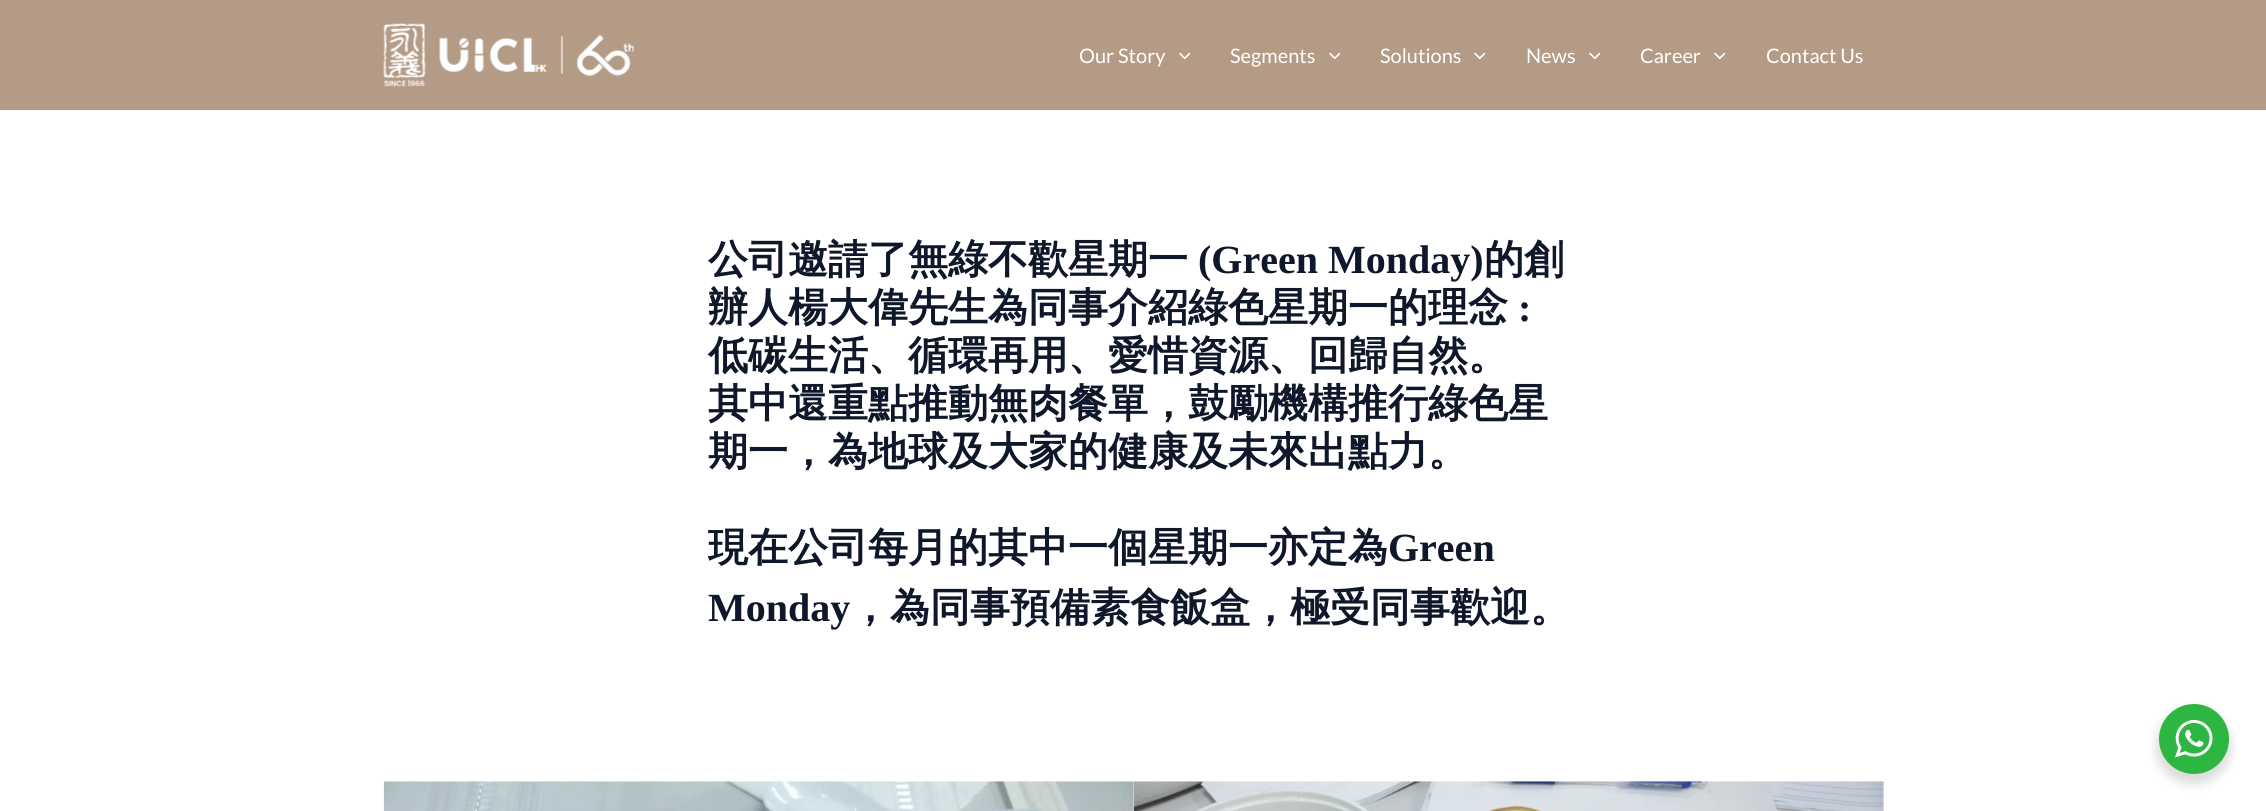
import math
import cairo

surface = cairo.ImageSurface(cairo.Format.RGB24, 2266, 811)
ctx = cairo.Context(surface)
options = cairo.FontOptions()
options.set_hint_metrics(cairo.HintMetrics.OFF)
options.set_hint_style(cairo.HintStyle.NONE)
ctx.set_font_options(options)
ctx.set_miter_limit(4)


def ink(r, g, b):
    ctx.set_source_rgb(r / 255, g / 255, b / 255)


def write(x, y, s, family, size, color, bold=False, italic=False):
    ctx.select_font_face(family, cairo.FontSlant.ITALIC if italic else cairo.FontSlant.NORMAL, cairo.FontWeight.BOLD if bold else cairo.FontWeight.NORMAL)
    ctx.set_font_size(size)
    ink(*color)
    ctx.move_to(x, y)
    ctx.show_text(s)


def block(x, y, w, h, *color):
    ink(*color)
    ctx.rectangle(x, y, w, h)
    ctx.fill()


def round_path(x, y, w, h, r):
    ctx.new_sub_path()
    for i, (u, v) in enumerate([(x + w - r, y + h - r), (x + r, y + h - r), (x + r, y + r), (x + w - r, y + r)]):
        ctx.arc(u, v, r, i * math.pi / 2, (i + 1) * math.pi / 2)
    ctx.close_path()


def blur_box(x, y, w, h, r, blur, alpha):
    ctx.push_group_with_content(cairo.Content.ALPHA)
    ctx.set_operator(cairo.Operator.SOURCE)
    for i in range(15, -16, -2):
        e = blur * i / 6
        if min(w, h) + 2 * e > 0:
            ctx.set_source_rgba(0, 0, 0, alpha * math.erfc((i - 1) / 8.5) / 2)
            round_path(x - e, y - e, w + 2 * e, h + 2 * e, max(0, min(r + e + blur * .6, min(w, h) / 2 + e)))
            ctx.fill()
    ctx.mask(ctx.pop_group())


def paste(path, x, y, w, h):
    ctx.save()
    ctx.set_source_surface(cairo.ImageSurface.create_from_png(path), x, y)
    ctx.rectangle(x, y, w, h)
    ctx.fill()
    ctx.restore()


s1 = dict(family="Lato", size=20, color=(255, 255, 255))
s2 = dict(family="WenQuanYi Zen Hei", size=40, color=(15, 23, 42), bold=True)
s3 = dict(family="Liberation Serif", size=40, color=(15, 23, 42), bold=True)

ink(255, 255, 255)
ctx.paint()
block(0, 0, 2266, 110, 180, 155, 134)
paste("pic1.png", 383, 23, 251, 64)
write(1079, 63, "Our Story", **s1)
paste("pic2.png", 1179, 52, 11, 8)
write(1230, 63, "Segments", **s1)
paste("pic2.png", 1329, 52, 11, 8)
write(1380, 63, "Solutions", **s1)
paste("pic3.png", 1474, 52, 12, 8)
write(1526, 63, "News", **s1)
paste("pic2.png", 1589, 52, 11, 8)
write(1640, 63, "Career", **s1)
paste("pic3.png", 1714, 52, 12, 8)
write(1766, 63, "Contact Us", **s1)
write(708, 273, "公司邀請了無綠不歡星期一", **s2)
write(1198, 273, "(Green Monday)", **s3)
write(1484, 273, "的創", **s2)
write(708, 321, "辦人楊大偉先生為同事介紹綠色星期一的理念", **s2)
write(1518, 321, ":", **s3)
write(708, 369, "低碳生活、循環再用、愛惜資源、回歸自然。", **s2)
write(708, 417, "其中還重點推動無肉餐單，鼓勵機構推行綠色星", **s2)
write(708, 465, "期一，為地球及大家的健康及未來出點力。", **s2)
write(708, 561, "現在公司每月的其中一個星期一亦定為", **s2)
write(1388, 561, "Green", **s3)
write(708, 621, "Monday", **s3)
write(850, 621, "，為同事預備素食飯盒，極受同事歡迎。", **s2)
paste("pic4.png", 383, 781, 751, 30)
paste("pic5.png", 1133, 781, 751, 30)
ink(0, 0, 0)
blur_box(2156, 709, 75, 75, 37.5, 5, 0.14)
ink(45, 183, 66)
ctx.arc(2194, 739, 35, 0, 2 * math.pi)
ctx.fill()
paste("pic6.png", 2175, 720, 38, 38)
surface.write_to_png("screenshot.png")
